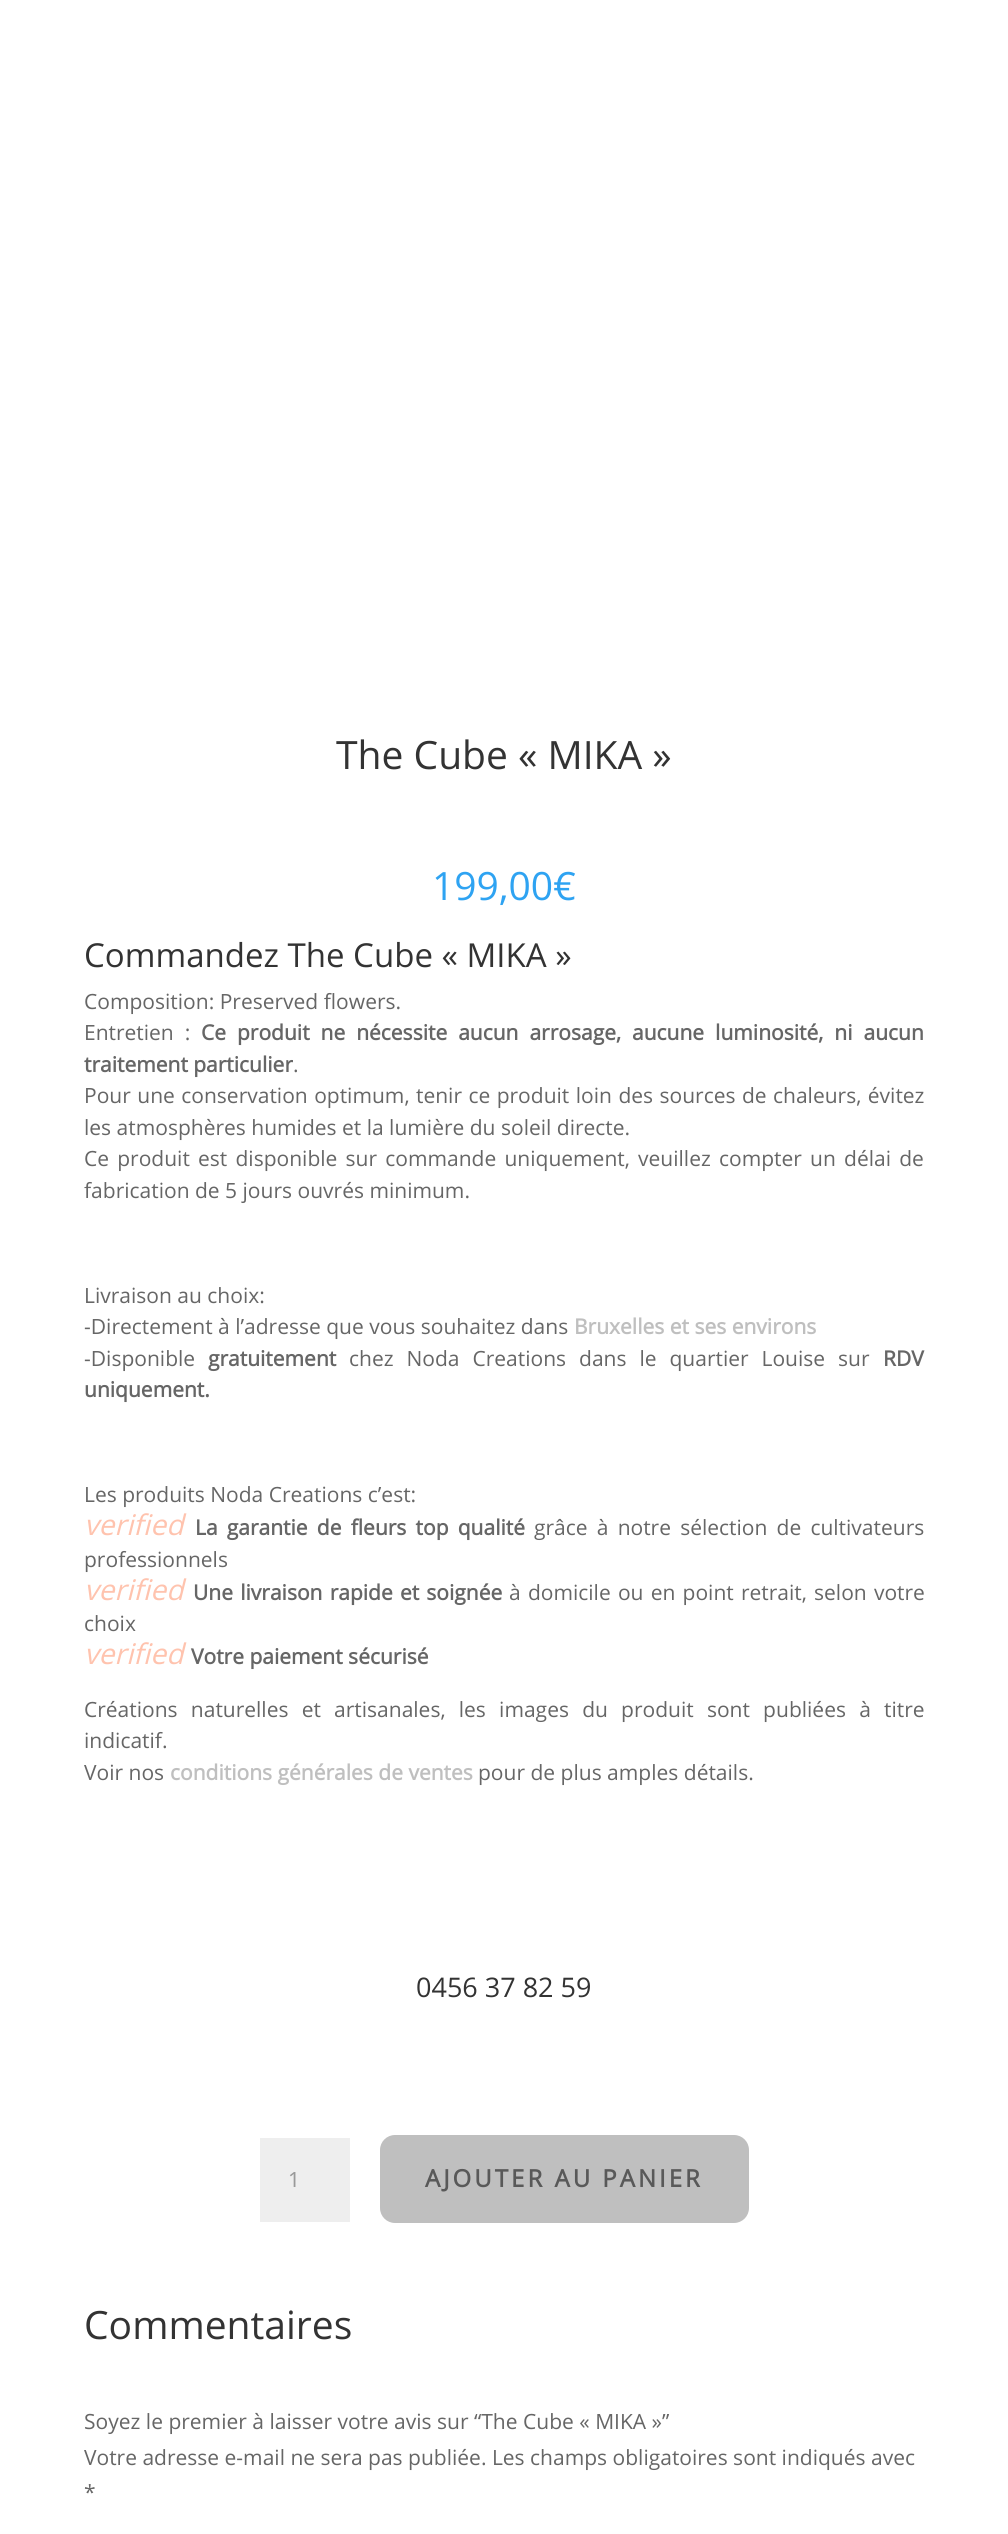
import math
import cairo

surface = cairo.ImageSurface(cairo.Format.RGB24, 1008, 2534)
ctx = cairo.Context(surface)
options = cairo.FontOptions()
options.set_hint_metrics(cairo.HintMetrics.OFF)
options.set_hint_style(cairo.HintStyle.NONE)
ctx.set_font_options(options)
ctx.set_miter_limit(4)


def ink(r, g, b):
    ctx.set_source_rgb(r / 255, g / 255, b / 255)


def write(x, y, s, family, size, color, bold=False, italic=False):
    ctx.select_font_face(family, cairo.FontSlant.ITALIC if italic else cairo.FontSlant.NORMAL, cairo.FontWeight.BOLD if bold else cairo.FontWeight.NORMAL)
    ctx.set_font_size(size)
    ink(*color)
    ctx.move_to(x, y)
    ctx.show_text(s)


def write_spaced(x, y, s, letter, word):
    ctx.move_to(x, y)
    for ch in s:
        ctx.show_text(ch)
        ctx.rel_move_to(letter + word * (ch == ' '), 0)


def block(x, y, w, h, *color):
    ink(*color)
    ctx.rectangle(x, y, w, h)
    ctx.fill()


def round_path(x, y, w, h, r):
    ctx.new_sub_path()
    for i, (u, v) in enumerate([(x + w - r, y + h - r), (x + r, y + h - r), (x + r, y + r), (x + w - r, y + r)]):
        ctx.arc(u, v, r, i * math.pi / 2, (i + 1) * math.pi / 2)
    ctx.close_path()


s1 = dict(family="Open Sans", size=39, color=(51, 51, 51))
s2 = dict(family="Open Sans", size=39, color=(46, 163, 242))
s3 = dict(family="Open Sans", size=33, color=(51, 51, 51))
s4 = dict(family="Open Sans", size=21, color=(102, 102, 102))
s5 = dict(family="Open Sans", size=21, color=(102, 102, 102), bold=True)
s6 = dict(family="Open Sans", size=21, color=(191, 191, 191), bold=True)
s7 = dict(family="Open Sans", size=28.5, color=(255, 195, 174), italic=True)
s8 = dict(family="Open Sans", size=27, color=(51, 51, 51))
s9 = dict(family="Noto Sans", size=21, color=(153, 153, 153))

ink(255, 255, 255)
ctx.paint()
write(336, 769, "The Cube « MIKA »", **s1)
write(432, 900, "199,00€", **s2)
write(84, 967, "Commandez The Cube « MIKA »", **s3)
write(84, 1009, "Composition: Preserved flowers.", **s4)
write_spaced(84, 1040, "Entretien :", 0, 5.5)
ctx.select_font_face("Open Sans", cairo.FontSlant.NORMAL, cairo.FontWeight.BOLD)
write_spaced(201, 1040, "Ce produit ne nécessite aucun arrosage, aucune luminosité, ni aucun", 0, 5.5)
write(84, 1072, "traitement particulier", **s5)
write(293, 1072, ".", **s4)
write_spaced(84, 1103, "Pour une conservation optimum, tenir ce produit loin des sources de chaleurs, évitez", 0, 1)
write(84, 1135, "les atmosphères humides et la lumière du soleil directe.", **s4)
write_spaced(84, 1166, "Ce produit est disponible sur commande uniquement, veuillez compter un délai de", 0, 2.75)
write(84, 1198, "fabrication de 5 jours ouvrés minimum.", **s4)
write(84, 1303, "Livraison au choix:", **s4)
write(84, 1334, "-Directement à l’adresse que vous souhaitez dans", **s4)
write(574, 1334, "Bruxelles et ses environs", **s6)
write(84, 1366, "-Disponible", **s4)
write(208, 1366, "gratuitement", **s5)
ctx.select_font_face("Open Sans")
write_spaced(349, 1366, "chez Noda Creations dans le quartier Louise sur", 0, 7.5)
write(883, 1366, "RDV", **s5)
write(84, 1397, "uniquement.", **s5)
write(84, 1502, "Les produits Noda Creations c’est:", **s4)
write(84, 1535, "verified", **s7)
ctx.select_font_face("Open Sans", cairo.FontSlant.NORMAL, cairo.FontWeight.BOLD)
ctx.set_font_size(21)
ink(102, 102, 102)
write_spaced(195, 1535, "La garantie de fleurs top qualité", 0, 3.75)
ctx.select_font_face("Open Sans")
write_spaced(534, 1535, "grâce à notre sélection de cultivateurs", 0, 3.75)
write(84, 1567, "professionnels", **s4)
write(84, 1600, "verified", **s7)
ctx.select_font_face("Open Sans", cairo.FontSlant.NORMAL, cairo.FontWeight.BOLD)
ctx.set_font_size(21)
ink(102, 102, 102)
write_spaced(193, 1600, "Une livraison rapide et soignée", 0, 1.75)
ctx.select_font_face("Open Sans")
write_spaced(509, 1600, "à domicile ou en point retrait, selon votre", 0, 1.75)
write(84, 1631, "choix", **s4)
write(84, 1664, "verified", **s7)
write(191, 1664, "Votre paiement sécurisé", **s5)
ctx.select_font_face("Open Sans")
write_spaced(84, 1717, "Créations naturelles et artisanales, les images du produit sont publiées à titre", 0, 7.75)
write(84, 1748, "indicatif.", **s4)
write(84, 1780, "Voir nos", **s4)
write(170, 1780, "conditions générales de ventes", **s6)
write(478, 1780, "pour de plus amples détails.", **s4)
write(416, 1997, "0456 37 82 59", **s8)
block(260, 2138, 90, 84, 238, 238, 238)
write(288, 2187, "1", **s9)
ink(191, 191, 191)
round_path(380, 2135, 369, 88, 15)
ctx.fill()
ctx.select_font_face("Open Sans", cairo.FontSlant.NORMAL, cairo.FontWeight.BOLD)
ctx.set_font_size(24)
ink(89, 89, 89)
write_spaced(425, 2187, "AJOUTER AU PANIER", 3, 0)
write(84, 2339, "Commentaires", **s1)
write(84, 2429, "Soyez le premier à laisser votre avis sur “The Cube « MIKA »”", **s4)
write(84, 2465, "Votre adresse e-mail ne sera pas publiée. Les champs obligatoires sont indiqués avec", **s4)
write(84, 2500, "*", **s4)
surface.write_to_png("screenshot.png")
